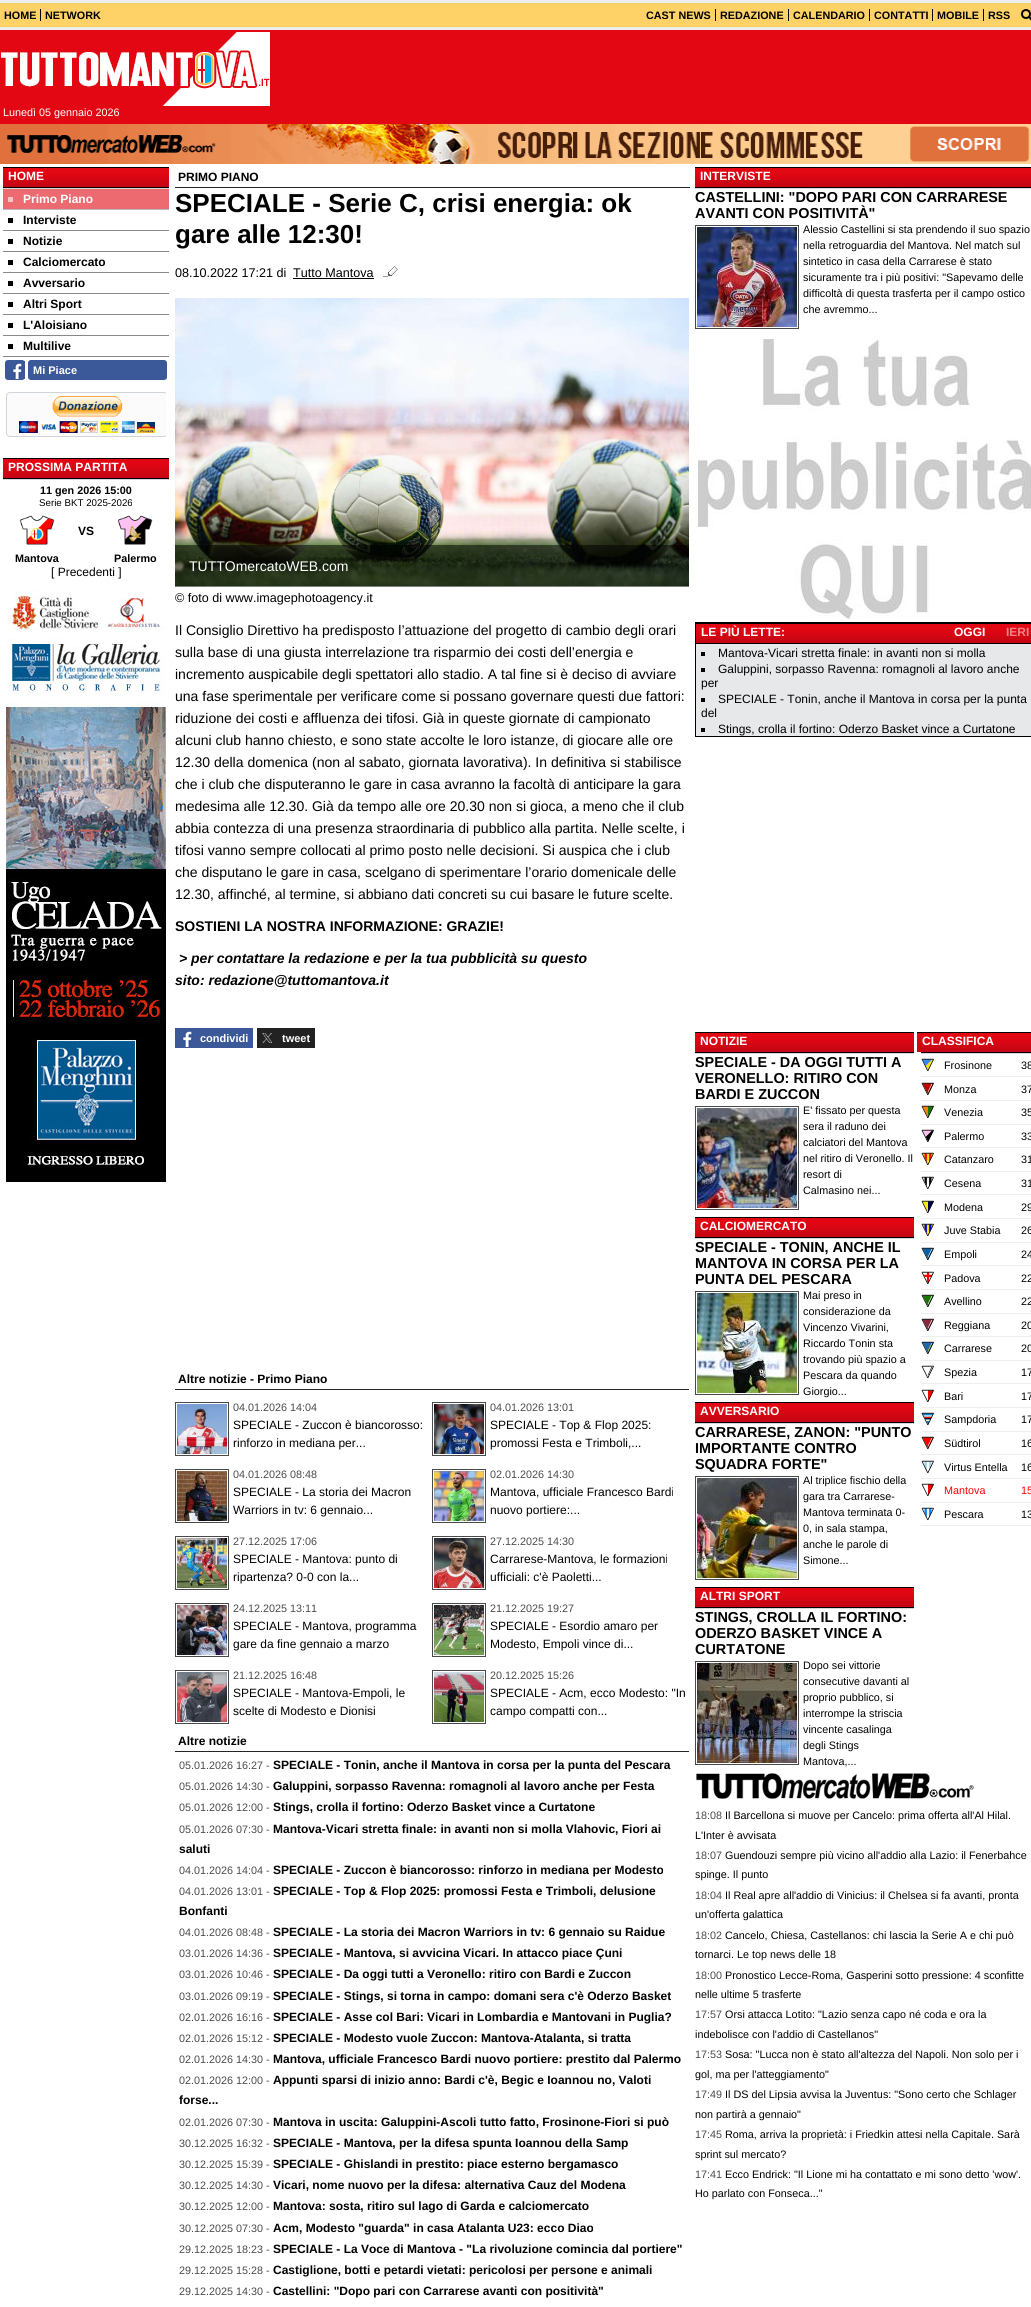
import math
import cairo

surface = cairo.ImageSurface(cairo.Format.RGB24, 1031, 2307)
ctx = cairo.Context(surface)
options = cairo.FontOptions()
options.set_hint_metrics(cairo.HintMetrics.OFF)
options.set_hint_style(cairo.HintStyle.NONE)
ctx.set_font_options(options)
ctx.set_miter_limit(4)


def ink(r, g, b):
    ctx.set_source_rgb(r / 255, g / 255, b / 255)


def write(x, y, s, family, size, color, bold=False, italic=False):
    ctx.select_font_face(family, cairo.FontSlant.ITALIC if italic else cairo.FontSlant.NORMAL, cairo.FontWeight.BOLD if bold else cairo.FontWeight.NORMAL)
    ctx.set_font_size(size)
    ink(*color)
    ctx.move_to(x, y)
    ctx.show_text(s)


def block(x, y, w, h, *color):
    ink(*color)
    ctx.rectangle(x, y, w, h)
    ctx.fill()


def round_path(x, y, w, h, r):
    ctx.new_sub_path()
    for i, (u, v) in enumerate([(x + w - r, y + h - r), (x + r, y + h - r), (x + r, y + r), (x + w - r, y + r)]):
        ctx.arc(u, v, r, i * math.pi / 2, (i + 1) * math.pi / 2)
    ctx.close_path()


def paste(path, x, y, w, h):
    ctx.save()
    ctx.set_source_surface(cairo.ImageSurface.create_from_png(path), x, y)
    ctx.rectangle(x, y, w, h)
    ctx.fill()
    ctx.restore()


s1 = dict(family="Liberation Sans", size=10.8, color=(0, 0, 0), bold=True)
s2 = dict(family="Liberation Sans", size=10.8, color=(255, 255, 255))
s3 = dict(family="Liberation Sans", size=12, color=(255, 255, 255), bold=True)
s4 = dict(family="Liberation Sans", size=12, color=(0, 0, 0), bold=True)
s5 = dict(family="Liberation Sans", size=11, color=(255, 255, 255), bold=True)
s6 = dict(family="Liberation Sans", size=9.75, color=(0, 0, 0))
s7 = dict(family="Liberation Sans", size=12, color=(0, 0, 0))
s8 = dict(family="Liberation Sans", size=26, color=(0, 0, 0), bold=True)
s9 = dict(family="Liberation Sans", size=12.6, color=(0, 0, 0))
s10 = dict(family="Liberation Sans", size=14, color=(255, 255, 255))
s11 = dict(family="Liberation Sans", size=14, color=(0, 0, 0))
s12 = dict(family="Liberation Sans", size=14, color=(0, 0, 0), bold=True)
s13 = dict(family="Liberation Sans", size=14, color=(0, 0, 0), bold=True, italic=True)
s14 = dict(family="Liberation Sans", size=10.8, color=(74, 74, 74))
s15 = dict(family="Liberation Sans", size=14.4, color=(0, 0, 0), bold=True)
s16 = dict(family="Liberation Sans", size=10.8, color=(0, 0, 0))
s17 = dict(family="Liberation Sans", size=12, color=(238, 131, 137), bold=True)
s18 = dict(family="Liberation Sans", size=10.8, color=(255, 0, 0))

ink(238, 238, 238)
ctx.paint()
block(0, 3, 1031, 24, 255, 210, 104)
write(4, 19, "HOME", **s1)
block(40, 9, 1, 12, 0, 0, 0)
write(45, 19, "NETWORK", **s1)
write(646, 19, "CAST NEWS", **s1)
block(715, 9, 1, 12, 0, 0, 0)
write(720, 19, "REDAZIONE", **s1)
block(788, 9, 1, 12, 0, 0, 0)
write(793, 19, "CALENDARIO", **s1)
block(869, 9, 1, 12, 0, 0, 0)
write(874, 19, "CONTATTI", **s1)
block(932, 9, 1, 12, 0, 0, 0)
write(937, 19, "MOBILE", **s1)
block(983, 9, 1, 12, 0, 0, 0)
write(988, 19, "RSS", **s1)
ctx.new_path()
ctx.move_to(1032.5, 20.5)
ctx.line_to(1028.5, 16.5)
ctx.stroke()
ctx.arc(1026, 14, 4, 0, 2 * math.pi)
ctx.stroke()
block(0, 30, 1031, 94, 227, 6, 19)
paste("pic1.png", 1, 32, 269, 74)
write(3, 116, "Lunedì 05 gennaio 2026", **s2)
paste("pic2.png", 0, 124, 1031, 40)
block(0, 164, 1031, 2143, 255, 255, 255)
paste("pic3.png", 3, 167, 166, 22)
write(8, 180, "HOME", **s3)
block(3, 189, 166, 20, 238, 106, 113)
block(3, 209, 166, 1, 184, 184, 184)
block(8, 197, 5, 5, 248, 195, 198)
write(23, 203, "Primo Piano", **s3)
block(3, 230, 166, 1, 137, 137, 137)
block(8, 218, 5, 5, 0, 0, 0)
write(23, 224, "Interviste", **s4)
block(3, 251, 166, 1, 137, 137, 137)
block(8, 239, 5, 5, 0, 0, 0)
write(23, 245, "Notizie", **s4)
block(3, 272, 166, 1, 137, 137, 137)
block(8, 260, 5, 5, 0, 0, 0)
write(23, 266, "Calciomercato", **s4)
block(3, 293, 166, 1, 137, 137, 137)
block(8, 281, 5, 5, 0, 0, 0)
write(23, 287, "Avversario", **s4)
block(3, 314, 166, 1, 137, 137, 137)
block(8, 302, 5, 5, 0, 0, 0)
write(23, 308, "Altri Sport", **s4)
block(3, 335, 166, 1, 137, 137, 137)
block(8, 323, 5, 5, 0, 0, 0)
write(23, 329, "L'Aloisiano", **s4)
block(3, 356, 166, 1, 137, 137, 137)
block(8, 344, 5, 5, 0, 0, 0)
write(23, 350, "Multilive", **s4)
paste("pic4.png", 6, 361, 19, 18)
round_path(5.5, 360.5, 19, 19, 2.5)
ink(59, 89, 152)
ctx.set_line_width(1)
ctx.stroke()
round_path(28.5, 360.5, 138, 19, 2.5)
ctx.fill_preserve()
ctx.stroke()
write(33, 374, "Mi Piace", **s5)
ctx.save()
ctx.rectangle(6, 392, 160, 60)
ctx.clip()
ink(251, 251, 251)
round_path(7, 393, 160, 43, 2.5)
ctx.fill()
round_path(6.5, 392.5, 161, 44, 3.5)
ink(206, 212, 218)
ctx.stroke()
ctx.restore()
paste("pic5.png", 19, 396, 136, 37)
paste("pic3.png", 3, 458, 166, 22)
write(8, 471, "PROSSIMA PARTITA", **s3)
write(40, 494, "11 gen 2026 15:00", **s1)
write(39, 506, "Serie BKT 2025-2026", **s6)
paste("pic6.png", 19, 515, 36, 30)
write(78, 535, "VS", **s4)
paste("pic7.png", 117, 515, 36, 30)
write(15, 562, "Mantova", **s1)
write(114, 562, "Palermo", **s1)
write(51, 576, "[ Precedenti ]", **s7)
paste("pic8.png", 6, 590, 160, 592)
block(175, 187, 515, 1, 37, 37, 37)
write(178, 181, "PRIMO PIANO", **s4)
write(175, 212, "SPECIALE - Serie C, crisi energia: ok", **s8)
write(175, 243, "gare alle 12:30!", **s8)
write(175, 277, "08.10.2022 17:21 di", **s9)
write(293, 277, "Tutto Mantova", **s9)
block(293, 278, 81, 1, 0, 0, 0)
paste("pic9.png", 383, 266, 15, 11)
paste("pic10.png", 175, 298, 514, 288)
ctx.set_source_rgba(0, 0, 0, 0.5)
ctx.rectangle(175, 545, 514, 42)
ctx.fill()
write(189, 571, "TUTTOmercatoWEB.com", **s10)
write(175, 602, "© foto di www.imagephotoagency.it", **s9)
write(175, 635, "Il Consiglio Direttivo ha predisposto l’attuazione del progetto di cambio degli orari", **s11)
write(175, 657, "sulla base di una giusta interrelazione tra risparmio dei costi dell’energia e", **s11)
write(175, 679, "incremento auspicabile degli spettatori allo stadio. A tal fine si è deciso di avviare", **s11)
write(175, 701, "una fase sperimentale per verificare come si possano governare questi due fattori:", **s11)
write(175, 723, "riduzione dei costi e affluenza dei tifosi. Già in queste giornate di campionato", **s11)
write(175, 745, "alcuni club hanno chiesto, e sono state accolte le loro istanze, di giocare alle ore", **s11)
write(175, 767, "12.30 della domenica (non al sabato, giornata lavorativa). In definitiva si stabilisce", **s11)
write(175, 789, "che i club che disputeranno le gare in casa avranno la facoltà di anticipare la gara", **s11)
write(175, 811, "medesima alle 12.30. Già da tempo alle ore 20.30 non si gioca, a meno che il club", **s11)
write(175, 833, "abbia contezza di una presenza straordinaria di pubblico alla partita. Nelle scelte, i", **s11)
write(175, 855, "tifosi vanno sempre collocati al primo posto nelle decisioni. Si auspica che i club", **s11)
write(175, 877, "che disputano le gare in casa, scelgano di sperimentare l’orario domenicale delle", **s11)
write(175, 899, "12.30, affinché, al termine, si abbiano dati concreti su cui basare le future scelte.", **s11)
write(175, 931, "SOSTIENI LA NOSTRA INFORMAZIONE: GRAZIE!", **s12)
write(179, 963, "> per contattare la redazione e per la tua pubblicità su questo", **s13)
write(175, 985, "sito: redazione@tuttomantova.it", **s13)
paste("pic11.png", 176, 1029, 18, 18)
ctx.rectangle(175.5, 1028.5, 19, 19)
ink(59, 89, 152)
ctx.stroke()
block(195, 1028, 58, 20, 59, 89, 152)
write(200, 1042, "condividi", **s5)
paste("pic12.png", 258, 1029, 18, 18)
ctx.rectangle(257.5, 1028.5, 19, 19)
ink(34, 34, 34)
ctx.stroke()
block(277, 1028, 38, 20, 34, 34, 34)
write(282, 1042, "tweet", **s5)
block(175, 1389, 514, 1, 37, 37, 37)
write(178, 1383, "Altre notizie - Primo Piano", **s4)
ctx.rectangle(175.5, 1402.5, 53, 53)
ink(74, 74, 74)
ctx.stroke()
paste("pic13.png", 177, 1404, 50, 50)
write(233, 1411, "04.01.2026 14:04", **s14)
write(233, 1429, "SPECIALE - Zuccon è biancorosso:", **s7)
write(233, 1447, "rinforzo in mediana per...", **s7)
ctx.rectangle(432.5, 1402.5, 53, 53)
ink(74, 74, 74)
ctx.stroke()
paste("pic14.png", 434, 1404, 50, 50)
write(490, 1411, "04.01.2026 13:01", **s14)
write(490, 1429, "SPECIALE - Top & Flop 2025:", **s7)
write(490, 1447, "promossi Festa e Trimboli,...", **s7)
ctx.rectangle(175.5, 1469.5, 53, 53)
ink(74, 74, 74)
ctx.stroke()
paste("pic15.png", 177, 1471, 50, 50)
write(233, 1478, "04.01.2026 08:48", **s14)
write(233, 1496, "SPECIALE - La storia dei Macron", **s7)
write(233, 1514, "Warriors in tv: 6 gennaio...", **s7)
ctx.rectangle(432.5, 1469.5, 53, 53)
ink(74, 74, 74)
ctx.stroke()
paste("pic16.png", 434, 1471, 50, 50)
write(490, 1478, "02.01.2026 14:30", **s14)
write(490, 1496, "Mantova, ufficiale Francesco Bardi", **s7)
write(490, 1514, "nuovo portiere:...", **s7)
ctx.rectangle(175.5, 1536.5, 53, 53)
ink(74, 74, 74)
ctx.stroke()
paste("pic17.png", 177, 1538, 50, 50)
write(233, 1545, "27.12.2025 17:06", **s14)
write(233, 1563, "SPECIALE - Mantova: punto di", **s7)
write(233, 1581, "ripartenza? 0-0 con la...", **s7)
ctx.rectangle(432.5, 1536.5, 53, 53)
ink(74, 74, 74)
ctx.stroke()
paste("pic18.png", 434, 1538, 50, 50)
write(490, 1545, "27.12.2025 14:30", **s14)
write(490, 1563, "Carrarese-Mantova, le formazioni", **s7)
write(490, 1581, "ufficiali: c'è Paoletti...", **s7)
ctx.rectangle(175.5, 1603.5, 53, 53)
ink(74, 74, 74)
ctx.stroke()
paste("pic19.png", 177, 1605, 50, 50)
write(233, 1612, "24.12.2025 13:11", **s14)
write(233, 1630, "SPECIALE - Mantova, programma", **s7)
write(233, 1648, "gare da fine gennaio a marzo", **s7)
ctx.rectangle(432.5, 1603.5, 53, 53)
ink(74, 74, 74)
ctx.stroke()
paste("pic20.png", 434, 1605, 50, 50)
write(490, 1612, "21.12.2025 19:27", **s14)
write(490, 1630, "SPECIALE - Esordio amaro per", **s7)
write(490, 1648, "Modesto, Empoli vince di...", **s7)
ctx.rectangle(175.5, 1670.5, 53, 53)
ink(74, 74, 74)
ctx.stroke()
paste("pic21.png", 177, 1672, 50, 50)
write(233, 1679, "21.12.2025 16:48", **s14)
write(233, 1697, "SPECIALE - Mantova-Empoli, le", **s7)
write(233, 1715, "scelte di Modesto e Dionisi", **s7)
ctx.rectangle(432.5, 1670.5, 53, 53)
ink(74, 74, 74)
ctx.stroke()
paste("pic22.png", 434, 1672, 50, 50)
write(490, 1679, "20.12.2025 15:26", **s14)
write(490, 1697, "SPECIALE - Acm, ecco Modesto: \"In", **s7)
write(490, 1715, "campo compatti con...", **s7)
block(175, 1751, 514, 1, 37, 37, 37)
write(178, 1745, "Altre notizie", **s4)
write(179, 1769, "05.01.2026 16:27 -", **s14)
write(273, 1769, "SPECIALE - Tonin, anche il Mantova in corsa per la punta del Pescara", **s4)
write(179, 1790, "05.01.2026 14:30 -", **s14)
write(273, 1790, "Galuppini, sorpasso Ravenna: romagnoli al lavoro anche per Festa", **s4)
write(179, 1811, "05.01.2026 12:00 -", **s14)
write(273, 1811, "Stings, crolla il fortino: Oderzo Basket vince a Curtatone", **s4)
write(179, 1833, "05.01.2026 07:30 -", **s14)
write(273, 1833, "Mantova-Vicari stretta finale: in avanti non si molla Vlahovic, Fiori ai", **s4)
write(179, 1853, "saluti", **s4)
write(179, 1874, "04.01.2026 14:04 -", **s14)
write(273, 1874, "SPECIALE - Zuccon è biancorosso: rinforzo in mediana per Modesto", **s4)
write(179, 1895, "04.01.2026 13:01 -", **s14)
write(273, 1895, "SPECIALE - Top & Flop 2025: promossi Festa e Trimboli, delusione", **s4)
write(179, 1915, "Bonfanti", **s4)
write(179, 1936, "04.01.2026 08:48 -", **s14)
write(273, 1936, "SPECIALE - La storia dei Macron Warriors in tv: 6 gennaio su Raidue", **s4)
write(179, 1957, "03.01.2026 14:36 -", **s14)
write(273, 1957, "SPECIALE - Mantova, si avvicina Vicari. In attacco piace Çuni", **s4)
write(179, 1978, "03.01.2026 10:46 -", **s14)
write(273, 1978, "SPECIALE - Da oggi tutti a Veronello: ritiro con Bardi e Zuccon", **s4)
write(179, 2000, "03.01.2026 09:19 -", **s14)
write(273, 2000, "SPECIALE - Stings, si torna in campo: domani sera c'è Oderzo Basket", **s4)
write(179, 2021, "02.01.2026 16:16 -", **s14)
write(273, 2021, "SPECIALE - Asse col Bari: Vicari in Lombardia e Mantovani in Puglia?", **s4)
write(179, 2042, "02.01.2026 15:12 -", **s14)
write(273, 2042, "SPECIALE - Modesto vuole Zuccon: Mantova-Atalanta, si tratta", **s4)
write(179, 2063, "02.01.2026 14:30 -", **s14)
write(273, 2063, "Mantova, ufficiale Francesco Bardi nuovo portiere: prestito dal Palermo", **s4)
write(179, 2084, "02.01.2026 12:00 -", **s14)
write(273, 2084, "Appunti sparsi di inizio anno: Bardi c'è, Begic e Ioannou no, Valoti", **s4)
write(179, 2104, "forse...", **s4)
write(179, 2126, "02.01.2026 07:30 -", **s14)
write(273, 2126, "Mantova in uscita: Galuppini-Ascoli tutto fatto, Frosinone-Fiori si può", **s4)
write(179, 2147, "30.12.2025 16:32 -", **s14)
write(273, 2147, "SPECIALE - Mantova, per la difesa spunta Ioannou della Samp", **s4)
write(179, 2168, "30.12.2025 15:39 -", **s14)
write(273, 2168, "SPECIALE - Ghislandi in prestito: piace esterno bergamasco", **s4)
write(179, 2189, "30.12.2025 14:30 -", **s14)
write(273, 2189, "Vicari, nome nuovo per la difesa: alternativa Cauz del Modena", **s4)
write(179, 2210, "30.12.2025 12:00 -", **s14)
write(273, 2210, "Mantova: sosta, ritiro sul lago di Garda e calciomercato", **s4)
write(179, 2232, "30.12.2025 07:30 -", **s14)
write(273, 2232, "Acm, Modesto \"guarda\" in casa Atalanta U23: ecco Diao", **s4)
write(179, 2253, "29.12.2025 18:23 -", **s14)
write(273, 2253, "SPECIALE - La Voce di Mantova - \"La rivoluzione comincia dal portiere\"", **s4)
write(179, 2274, "29.12.2025 15:28 -", **s14)
write(273, 2274, "Castiglione, botti e petardi vietati: pericolosi per persone e animali", **s4)
write(179, 2295, "29.12.2025 14:30 -", **s14)
write(273, 2295, "Castellini: \"Dopo pari con Carrarese avanti con positività\"", **s4)
paste("pic23.png", 695, 167, 336, 22)
write(700, 180, "INTERVISTE", **s3)
write(695, 202, "CASTELLINI: \"DOPO PARI CON CARRARESE", **s15)
write(695, 218, "AVANTI CON POSITIVITÀ\"", **s15)
ctx.rectangle(695.5, 225.5, 103, 103)
ink(74, 74, 74)
ctx.stroke()
paste("pic24.png", 697, 227, 100, 100)
write(803, 233, "Alessio Castellini si sta prendendo il suo spazio", **s16)
write(803, 249, "nella retroguardia del Mantova. Nel match sul", **s16)
write(803, 265, "sintetico in casa della Carrarese è stato", **s16)
write(803, 281, "sicuramente tra i più positivi: \"Sapevamo delle", **s16)
write(803, 297, "difficoltà di questa trasferta per il campo ostico", **s16)
write(803, 313, "che avremmo...", **s16)
paste("pic25.png", 698, 339, 333, 280)
paste("pic26.png", 696, 623, 335, 20)
block(695, 622, 336, 1, 0, 0, 0)
block(695, 622, 1, 21, 0, 0, 0)
write(701, 636, "LE PIÙ LETTE:", **s3)
write(954, 636, "OGGI", **s3)
write(1006, 636, "IERI", **s17)
ctx.rectangle(695.5, 643.5, 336, 93)
ink(0, 0, 0)
ctx.stroke()
block(696, 644, 335, 92, 231, 232, 233)
block(701, 652, 4, 4, 0, 0, 0)
write(718, 657, "Mantova-Vicari stretta finale: in avanti non si molla", **s7)
block(701, 668, 4, 4, 0, 0, 0)
write(718, 673, "Galuppini, sorpasso Ravenna: romagnoli al lavoro anche", **s7)
write(701, 687, "per", **s7)
block(701, 698, 4, 4, 0, 0, 0)
write(718, 703, "SPECIALE - Tonin, anche il Mantova in corsa per la punta", **s7)
write(701, 717, "del", **s7)
block(701, 728, 4, 4, 0, 0, 0)
write(718, 733, "Stings, crolla il fortino: Oderzo Basket vince a Curtatone", **s7)
paste("pic27.png", 695, 1032, 219, 22)
write(700, 1045, "NOTIZIE", **s3)
write(695, 1067, "SPECIALE - DA OGGI TUTTI A", **s15)
write(695, 1083, "VERONELLO: RITIRO CON", **s15)
write(695, 1099, "BARDI E ZUCCON", **s15)
ctx.rectangle(695.5, 1106.5, 103, 103)
ink(74, 74, 74)
ctx.stroke()
paste("pic28.png", 697, 1108, 100, 100)
write(803, 1114, "E' fissato per questa", **s16)
write(803, 1130, "sera il raduno dei", **s16)
write(803, 1146, "calciatori del Mantova", **s16)
write(803, 1162, "nel ritiro di Veronello. Il", **s16)
write(803, 1178, "resort di", **s16)
write(803, 1194, "Calmasino nei...", **s16)
paste("pic27.png", 695, 1217, 219, 22)
write(700, 1230, "CALCIOMERCATO", **s3)
write(695, 1252, "SPECIALE - TONIN, ANCHE IL", **s15)
write(695, 1268, "MANTOVA IN CORSA PER LA", **s15)
write(695, 1284, "PUNTA DEL PESCARA", **s15)
ctx.rectangle(695.5, 1291.5, 103, 103)
ink(74, 74, 74)
ctx.stroke()
paste("pic29.png", 697, 1293, 100, 100)
write(803, 1299, "Mai preso in", **s16)
write(803, 1315, "considerazione da", **s16)
write(803, 1331, "Vincenzo Vivarini,", **s16)
write(803, 1347, "Riccardo Tonin sta", **s16)
write(803, 1363, "trovando più spazio a", **s16)
write(803, 1379, "Pescara da quando", **s16)
write(803, 1395, "Giorgio...", **s16)
paste("pic27.png", 695, 1402, 219, 22)
write(700, 1415, "AVVERSARIO", **s3)
write(695, 1437, "CARRARESE, ZANON: \"PUNTO", **s15)
write(695, 1453, "IMPORTANTE CONTRO", **s15)
write(695, 1469, "SQUADRA FORTE\"", **s15)
ctx.rectangle(695.5, 1476.5, 103, 103)
ink(74, 74, 74)
ctx.stroke()
paste("pic30.png", 697, 1478, 100, 100)
write(803, 1484, "Al triplice fischio della", **s16)
write(803, 1500, "gara tra Carrarese-", **s16)
write(803, 1516, "Mantova terminata 0-", **s16)
write(803, 1532, "0, in sala stampa,", **s16)
write(803, 1548, "anche le parole di", **s16)
write(803, 1564, "Simone...", **s16)
paste("pic27.png", 695, 1587, 219, 22)
write(700, 1600, "ALTRI SPORT", **s3)
write(695, 1622, "STINGS, CROLLA IL FORTINO:", **s15)
write(695, 1638, "ODERZO BASKET VINCE A", **s15)
write(695, 1654, "CURTATONE", **s15)
ctx.rectangle(695.5, 1661.5, 103, 103)
ink(74, 74, 74)
ctx.stroke()
paste("pic31.png", 697, 1663, 100, 100)
write(803, 1669, "Dopo sei vittorie", **s16)
write(803, 1685, "consecutive davanti al", **s16)
write(803, 1701, "proprio pubblico, si", **s16)
write(803, 1717, "interrompe la striscia", **s16)
write(803, 1733, "vincente casalinga", **s16)
write(803, 1749, "degli Stings", **s16)
write(803, 1765, "Mantova,...", **s16)
paste("pic32.png", 917, 1032, 114, 22)
write(922, 1045, "CLASSIFICA", **s3)
block(917, 1052, 4, 2, 255, 255, 255)
paste("pic33.png", 921, 1058, 13, 13)
write(944, 1069, "Frosinone", **s16)
block(919, 1076, 112, 1, 238, 238, 238)
write(1021, 1069, "38", **s16)
block(919, 1075, 2, 2, 255, 255, 255)
paste("pic34.png", 921, 1082, 13, 13)
write(944, 1093, "Monza", **s16)
block(919, 1100, 112, 1, 238, 238, 238)
write(1021, 1093, "37", **s16)
block(919, 1098, 2, 3, 255, 255, 255)
paste("pic35.png", 921, 1105, 13, 13)
write(944, 1116, "Venezia", **s16)
block(919, 1124, 112, 1, 238, 238, 238)
write(1021, 1116, "35", **s16)
block(919, 1122, 2, 3, 255, 255, 255)
paste("pic36.png", 921, 1129, 13, 13)
write(944, 1140, "Palermo", **s16)
block(919, 1147, 112, 1, 238, 238, 238)
write(1021, 1140, "33", **s16)
block(919, 1146, 2, 2, 255, 255, 255)
paste("pic37.png", 921, 1152, 13, 13)
write(944, 1163, "Catanzaro", **s16)
block(919, 1171, 112, 1, 238, 238, 238)
write(1021, 1163, "31", **s16)
block(919, 1169, 2, 3, 255, 255, 255)
paste("pic38.png", 921, 1176, 13, 13)
write(944, 1187, "Cesena", **s16)
block(919, 1194, 112, 1, 238, 238, 238)
write(1021, 1187, "31", **s16)
block(919, 1193, 2, 2, 255, 255, 255)
paste("pic39.png", 921, 1200, 13, 13)
write(944, 1211, "Modena", **s16)
block(919, 1218, 112, 1, 238, 238, 238)
write(1021, 1211, "29", **s16)
block(919, 1217, 2, 2, 255, 255, 255)
paste("pic40.png", 921, 1223, 13, 13)
write(944, 1234, "Juve Stabia", **s16)
block(919, 1242, 112, 1, 238, 238, 238)
write(1021, 1234, "26", **s16)
block(919, 1240, 2, 3, 255, 255, 255)
paste("pic41.png", 921, 1247, 13, 13)
write(944, 1258, "Empoli", **s16)
block(919, 1265, 112, 1, 238, 238, 238)
write(1021, 1258, "24", **s16)
block(919, 1264, 2, 2, 255, 255, 255)
paste("pic42.png", 921, 1271, 13, 13)
write(944, 1282, "Padova", **s16)
block(919, 1289, 112, 1, 238, 238, 238)
write(1021, 1282, "22", **s16)
block(919, 1287, 2, 3, 255, 255, 255)
paste("pic43.png", 921, 1294, 13, 13)
write(944, 1305, "Avellino", **s16)
block(919, 1313, 112, 1, 238, 238, 238)
write(1021, 1305, "22", **s16)
block(919, 1311, 2, 3, 255, 255, 255)
paste("pic44.png", 921, 1318, 13, 13)
write(944, 1329, "Reggiana", **s16)
block(919, 1336, 112, 1, 238, 238, 238)
write(1021, 1329, "20", **s16)
block(919, 1335, 2, 2, 255, 255, 255)
paste("pic45.png", 921, 1341, 13, 13)
write(944, 1352, "Carrarese", **s16)
block(919, 1360, 112, 1, 238, 238, 238)
write(1021, 1352, "20", **s16)
block(919, 1358, 2, 3, 255, 255, 255)
paste("pic46.png", 921, 1365, 13, 13)
write(944, 1376, "Spezia", **s16)
block(919, 1383, 112, 1, 238, 238, 238)
write(1021, 1376, "17", **s16)
block(919, 1382, 2, 2, 255, 255, 255)
paste("pic47.png", 921, 1389, 13, 13)
write(944, 1400, "Bari", **s16)
block(919, 1407, 112, 1, 238, 238, 238)
write(1021, 1400, "17", **s16)
block(919, 1406, 2, 2, 255, 255, 255)
paste("pic48.png", 921, 1412, 13, 13)
write(944, 1423, "Sampdoria", **s16)
block(919, 1431, 112, 1, 238, 238, 238)
write(1021, 1423, "17", **s16)
block(919, 1429, 2, 3, 255, 255, 255)
paste("pic49.png", 921, 1436, 13, 13)
write(944, 1447, "Südtirol", **s16)
block(919, 1454, 112, 1, 238, 238, 238)
write(1021, 1447, "16", **s16)
block(919, 1453, 2, 2, 255, 255, 255)
paste("pic50.png", 921, 1460, 13, 13)
write(944, 1471, "Virtus Entella", **s16)
block(919, 1478, 112, 1, 238, 238, 238)
write(1021, 1471, "16", **s16)
block(919, 1476, 2, 3, 255, 255, 255)
paste("pic47.png", 921, 1483, 13, 13)
write(944, 1494, "Mantova", **s18)
block(919, 1502, 112, 1, 238, 238, 238)
write(1021, 1494, "15", **s18)
block(919, 1525, 112, 1, 238, 238, 238)
block(919, 1500, 2, 28, 255, 255, 255)
paste("pic51.png", 921, 1507, 13, 13)
write(944, 1518, "Pescara", **s16)
write(1021, 1518, "13", **s16)
paste("pic52.png", 696, 1773, 278, 26)
write(695, 1819, "18:08", **s14)
write(725, 1819, "Il Barcellona si muove per Cancelo: prima offerta all'Al Hilal.", **s16)
write(695, 1839, "L'Inter è avvisata", **s16)
write(695, 1859, "18:07", **s14)
write(725, 1859, "Guendouzi sempre più vicino all'addio alla Lazio: il Fenerbahce", **s16)
write(695, 1878, "spinge. Il punto", **s16)
write(695, 1899, "18:04", **s14)
write(725, 1899, "Il Real apre all'addio di Vinicius: il Chelsea si fa avanti, pronta", **s16)
write(695, 1918, "un'offerta galattica", **s16)
write(695, 1939, "18:02", **s14)
write(725, 1939, "Cancelo, Chiesa, Castellanos: chi lascia la Serie A e chi può", **s16)
write(695, 1958, "tornarci. Le top news delle 18", **s16)
write(695, 1979, "18:00", **s14)
write(725, 1979, "Pronostico Lecce-Roma, Gasperini sotto pressione: 4 sconfitte", **s16)
write(695, 1998, "nelle ultime 5 trasferte", **s16)
write(695, 2018, "17:57", **s14)
write(725, 2018, "Orsi attacca Lotito: \"Lazio senza capo né coda e ora la", **s16)
write(695, 2038, "indebolisce con l'addio di Castellanos\"", **s16)
write(695, 2058, "17:53", **s14)
write(725, 2058, "Sosa: \"Lucca non è stato all'altezza del Napoli. Non solo per i", **s16)
write(695, 2078, "gol, ma per l'atteggiamento\"", **s16)
write(695, 2098, "17:49", **s14)
write(725, 2098, "Il DS del Lipsia avvisa la Juventus: \"Sono certo che Schlager", **s16)
write(695, 2118, "non partirà a gennaio\"", **s16)
write(695, 2138, "17:45", **s14)
write(725, 2138, "Roma, arriva la proprietà: i Friedkin attesi nella Capitale. Sarà", **s16)
write(695, 2158, "sprint sul mercato?", **s16)
write(695, 2178, "17:41", **s14)
write(725, 2178, "Ecco Endrick: \"Il Lione mi ha contattato e mi sono detto 'wow'.", **s16)
write(695, 2197, "Ho parlato con Fonseca...\"", **s16)
surface.write_to_png("screenshot.png")
